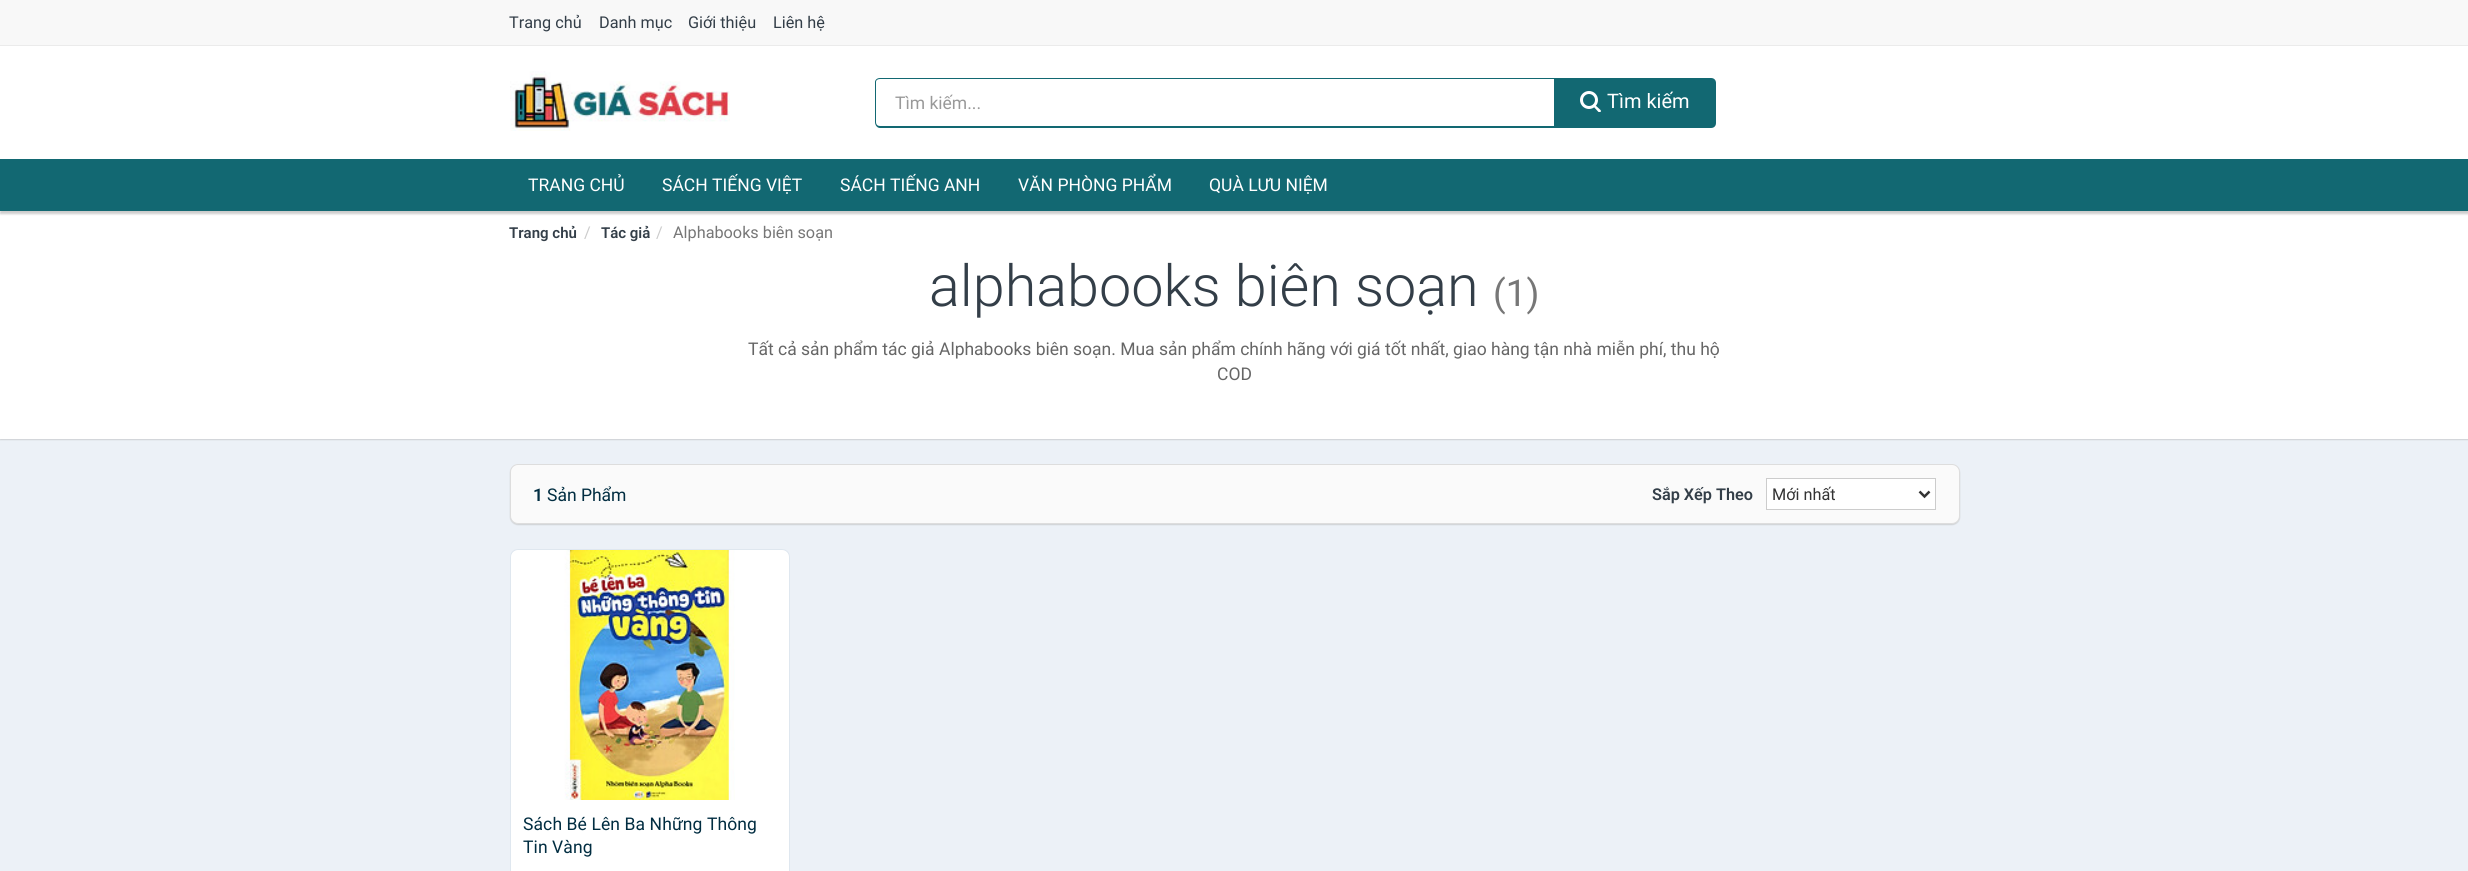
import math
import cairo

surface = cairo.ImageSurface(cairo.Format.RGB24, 2468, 871)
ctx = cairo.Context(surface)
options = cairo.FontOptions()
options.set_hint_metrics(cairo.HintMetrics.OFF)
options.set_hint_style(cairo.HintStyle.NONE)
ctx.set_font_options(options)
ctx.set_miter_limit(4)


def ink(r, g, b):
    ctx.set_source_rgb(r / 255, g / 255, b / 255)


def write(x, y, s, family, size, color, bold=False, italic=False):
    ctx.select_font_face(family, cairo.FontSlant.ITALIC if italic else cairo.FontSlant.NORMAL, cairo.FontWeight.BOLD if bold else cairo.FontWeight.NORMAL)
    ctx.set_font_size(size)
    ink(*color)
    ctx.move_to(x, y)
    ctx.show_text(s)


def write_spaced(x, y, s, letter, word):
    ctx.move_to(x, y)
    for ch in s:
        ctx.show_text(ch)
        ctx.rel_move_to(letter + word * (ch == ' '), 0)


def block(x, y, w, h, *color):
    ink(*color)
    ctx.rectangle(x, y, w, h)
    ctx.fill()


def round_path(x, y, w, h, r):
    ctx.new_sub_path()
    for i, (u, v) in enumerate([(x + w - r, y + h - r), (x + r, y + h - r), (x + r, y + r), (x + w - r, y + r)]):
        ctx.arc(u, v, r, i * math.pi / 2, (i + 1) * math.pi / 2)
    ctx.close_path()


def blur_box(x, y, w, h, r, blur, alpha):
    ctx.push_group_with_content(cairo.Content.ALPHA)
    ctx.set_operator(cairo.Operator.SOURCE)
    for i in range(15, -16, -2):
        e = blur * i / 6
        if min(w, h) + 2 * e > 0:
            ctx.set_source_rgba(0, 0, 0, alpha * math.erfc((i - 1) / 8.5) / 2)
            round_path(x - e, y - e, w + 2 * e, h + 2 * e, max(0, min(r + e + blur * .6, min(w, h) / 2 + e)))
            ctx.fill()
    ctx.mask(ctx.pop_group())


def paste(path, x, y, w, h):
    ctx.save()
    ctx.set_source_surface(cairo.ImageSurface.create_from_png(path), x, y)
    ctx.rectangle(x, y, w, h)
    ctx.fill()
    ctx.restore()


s1 = dict(family="Roboto", size=16.25, color=(51, 62, 72))
s2 = dict(family="Roboto", size=17.5, color=(153, 153, 153))
s3 = dict(family="Roboto", size=20, color=(255, 255, 255))
s4 = dict(family="Roboto", size=17.5, color=(255, 255, 255))
s5 = dict(family="Roboto SemiBold", size=15, color=(51, 62, 72))
s6 = dict(family="Roboto", size=16.25, color=(204, 204, 204))
s7 = dict(family="Roboto", size=16.25, color=(119, 119, 119))
s8 = dict(family="Roboto Light", size=57.5, color=(51, 62, 72))
s9 = dict(family="Roboto", size=37, color=(119, 119, 119))
s10 = dict(family="Roboto", size=17.5, color=(102, 102, 102))
s11 = dict(family="Roboto SemiBold", size=17.5, color=(1, 45, 65))
s12 = dict(family="Roboto", size=17.5, color=(1, 45, 65))
s13 = dict(family="Roboto SemiBold", size=16.25, color=(51, 62, 72))
s14 = dict(family="Roboto", size=16.25, color=(51, 51, 51))

ink(255, 255, 255)
ctx.paint()
block(0, 0, 2468, 45, 248, 248, 248)
block(0, 45, 2468, 1, 235, 235, 235)
write(509, 28, "Trang chủ", **s1)
write(599, 28, "Danh mục", **s1)
write(688, 28, "Giới thiệu", **s1)
write(773, 28, "Liên hệ", **s1)
paste("pic1.png", 510, 71, 220, 60)
ink(18, 104, 114)
ctx.set_fill_rule(cairo.FillRule.EVEN_ODD)
ctx.new_path()
ctx.move_to(880, 78)
ctx.line_to(1555, 78)
ctx.line_to(1555, 128)
ctx.line_to(880, 128)
ctx.curve_to(877, 128, 875, 125, 875, 122)
ctx.line_to(875, 82)
ctx.curve_to(875, 80, 877, 78, 880, 78)
ctx.close_path()
ctx.move_to(880, 79)
ctx.line_to(1555, 79)
ctx.line_to(1555, 126)
ctx.line_to(880, 126)
ctx.curve_to(878, 126, 876, 125, 876, 122)
ctx.line_to(876, 82)
ctx.curve_to(876, 80, 878, 79, 880, 79)
ctx.close_path()
ctx.fill()
write(895, 109, "Tìm kiếm...", **s2)
ink(18, 104, 114)
ctx.new_path()
ctx.move_to(1554, 78)
ctx.line_to(1711, 78)
ctx.curve_to(1714, 78, 1716, 80, 1716, 83)
ctx.line_to(1716, 123)
ctx.curve_to(1716, 126, 1714, 128, 1711, 128)
ctx.line_to(1554, 128)
ctx.close_path()
ctx.fill()
ctx.arc(1589, 100, 7.5, 0, 2 * math.pi)
ink(255, 255, 255)
ctx.set_line_width(3)
ctx.stroke()
ctx.set_fill_rule(cairo.FillRule.WINDING)
ctx.new_path()
ctx.move_to(1594, 104)
ctx.line_to(1600.5, 110)
ctx.curve_to(1601, 110.5, 1601, 111.5, 1600.5, 112)
ctx.curve_to(1600, 112, 1599, 112, 1598.5, 112)
ctx.line_to(1592.5, 105.5)
ctx.close_path()
ctx.fill()
write(1607, 108, "Tìm kiếm", **s3)
ink(0, 0, 0)
blur_box(0, 161, 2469, 53, 0, 1, 0.2)
block(0, 159, 2468, 52, 18, 104, 114)
write(528, 191, "TRANG CHỦ", **s4)
write(662, 191, "SÁCH TIẾNG VIỆT", **s4)
write(840, 191, "SÁCH TIẾNG ANH", **s4)
write(1018, 191, "VĂN PHÒNG PHẨM", **s4)
write(1209, 191, "QUÀ LƯU NIỆM", **s4)
write(509, 238, "Trang chủ", **s5)
write(584, 238, "/", **s6)
write(601, 238, "Tác giả", **s5)
write(656, 238, "/", **s6)
write(673, 238, "Alphabooks biên soạn", **s7)
block(0, 439, 2468, 432, 236, 241, 247)
ink(180, 180, 180)
blur_box(0, 256, 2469, 184, 0, 0.5, 0.5)
block(0, 255, 2468, 184, 255, 255, 255)
write(929, 306, "alphabooks biên soạn", **s8)
write(1493, 306, "(1)", **s9)
write(748, 355, "Tất cả sản phẩm tác giả Alphabooks biên soạn. Mua sản phẩm chính hãng với giá tốt nhất, giao hàng tận nhà miễn phí, thu hộ", **s10)
write(1217, 380, "COD", **s10)
ink(180, 180, 180)
blur_box(510, 465, 1450, 60, 8, 0.5, 0.5)
ink(250, 250, 250)
round_path(510.5, 464.5, 1449, 59, 7.5)
ctx.fill_preserve()
ink(221, 221, 221)
ctx.set_line_width(1)
ctx.stroke()
write(533, 501, "1", **s11)
write(547, 501, "Sản Phẩm", **s12)
write(1652, 500, "Sắp Xếp Theo", **s13)
ink(255, 255, 255)
ctx.rectangle(1766.5, 478.5, 169, 31)
ctx.fill_preserve()
ink(204, 204, 204)
ctx.stroke()
ctx.new_path()
ctx.move_to(1919.5, 491.5)
ctx.line_to(1924.5, 496.5)
ctx.line_to(1929.5, 491.5)
ink(51, 51, 51)
ctx.set_line_width(2.5)
ctx.stroke()
write(1772, 500, "Mới nhất", **s14)
ink(255, 255, 255)
round_path(510.5, 549.5, 279, 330, 7.5)
ctx.fill_preserve()
ink(223, 231, 239)
ctx.set_line_width(1)
ctx.stroke()
paste("pic2.png", 562, 550, 173, 250)
ctx.set_font_size(17.5)
ink(1, 45, 65)
write_spaced(523, 830, "Sách Bé Lên Ba Những Thông", 0.1, 0)
write_spaced(523, 853, "Tin Vàng", 0.1, 0)
surface.write_to_png("screenshot.png")
